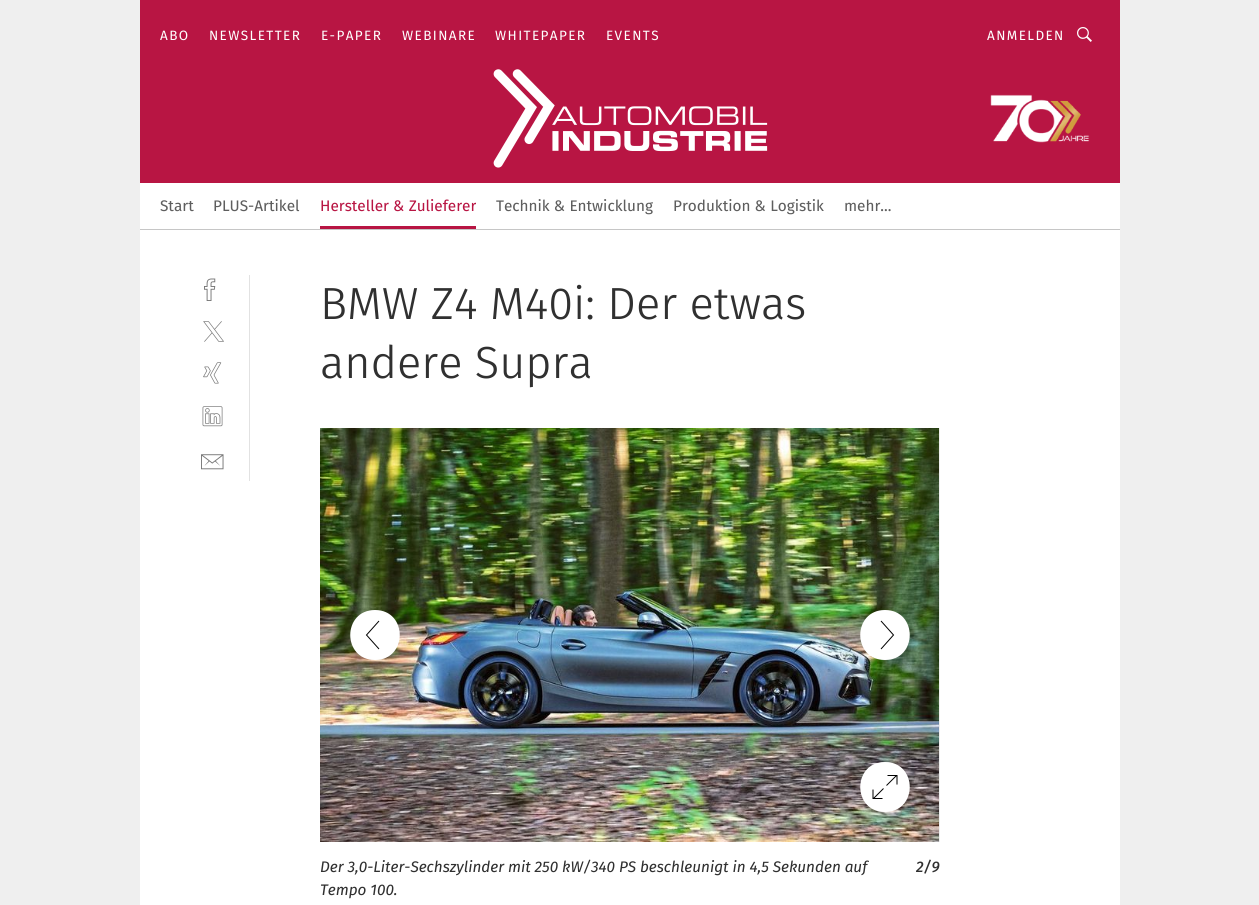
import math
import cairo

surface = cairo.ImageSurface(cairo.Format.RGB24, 1259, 905)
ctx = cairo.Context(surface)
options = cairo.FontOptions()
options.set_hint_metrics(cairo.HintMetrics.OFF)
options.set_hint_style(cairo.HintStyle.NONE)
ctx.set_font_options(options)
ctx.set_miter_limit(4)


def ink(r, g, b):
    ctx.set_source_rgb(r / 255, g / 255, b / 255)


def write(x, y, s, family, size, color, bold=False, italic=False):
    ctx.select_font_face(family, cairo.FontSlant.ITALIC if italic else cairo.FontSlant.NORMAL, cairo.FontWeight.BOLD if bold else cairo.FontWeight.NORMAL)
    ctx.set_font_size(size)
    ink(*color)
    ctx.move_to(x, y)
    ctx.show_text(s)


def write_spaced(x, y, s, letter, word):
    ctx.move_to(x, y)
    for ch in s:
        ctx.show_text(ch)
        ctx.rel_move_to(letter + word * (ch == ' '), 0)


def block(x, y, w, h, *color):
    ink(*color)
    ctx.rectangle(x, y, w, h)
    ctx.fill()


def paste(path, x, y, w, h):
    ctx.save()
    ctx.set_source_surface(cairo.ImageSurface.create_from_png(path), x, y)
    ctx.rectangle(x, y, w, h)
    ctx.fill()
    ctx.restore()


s1 = dict(family="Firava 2", size=15.3, color=(94, 94, 94))
s2 = dict(family="Firava 2", size=15.3, color=(184, 21, 67))
s3 = dict(family="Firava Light", size=45, color=(48, 48, 48))
s4 = dict(family="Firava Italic", size=15.3, color=(48, 48, 48), italic=True)
s5 = dict(family="Firava Italic Medium", size=15.3, color=(48, 48, 48), italic=True)

ink(239, 239, 239)
ctx.paint()
block(140, 230, 980, 675, 255, 255, 255)
block(140, 229, 980, 1, 198, 198, 198)
block(140, 0, 980, 183, 184, 21, 67)
ctx.select_font_face("Firava")
ctx.set_font_size(13.5)
ink(255, 255, 255)
write_spaced(160, 40, "ABO", 1.4, 0)
write_spaced(209, 40, "NEWSLETTER", 1.4, 0)
write_spaced(321, 40, "E-PAPER", 1.4, 0)
write_spaced(402, 40, "WEBINARE", 1.4, 0)
write_spaced(495, 40, "WHITEPAPER", 1.4, 0)
write_spaced(606, 40, "EVENTS", 1.4, 0)
write_spaced(987, 40, "ANMELDEN", 1.4, 0)
paste("pic1.png", 1077, 27, 15, 15)
paste("pic2.png", 493, 69, 275, 99)
paste("pic3.png", 990, 94, 100, 49)
block(140, 183, 980, 46, 255, 255, 255)
write(160, 211, "Start", **s1)
write(213, 211, "PLUS-Artikel", **s1)
block(320, 226, 156, 3, 184, 21, 67)
write(320, 211, "Hersteller & Zulieferer", **s2)
write(496, 211, "Technik & Entwicklung", **s1)
write(673, 211, "Produktion & Logistik", **s1)
write(844, 211, "mehr...", **s1)
block(249, 275, 1, 206, 226, 226, 226)
paste("pic4.png", 204, 278, 12, 23)
paste("pic5.png", 203, 321, 21, 21)
paste("pic6.png", 203, 362, 19, 22)
paste("pic7.png", 202, 406, 21, 21)
paste("pic8.png", 201, 454, 23, 16)
write(320, 319, "BMW Z4 M40i: Der etwas", **s3)
write(320, 378, "andere Supra", **s3)
block(939, 428, 1, 414, 239, 239, 239)
paste("pic9.png", 320, 428, 619, 414)
ink(255, 255, 255)
ctx.new_path()
ctx.move_to(375, 660)
ctx.curve_to(408, 660, 408, 610, 375, 610)
ctx.curve_to(342, 610, 342, 660, 375, 660)
ctx.fill()
ctx.new_path()
ctx.move_to(379, 621)
ctx.line_to(366.5, 635)
ctx.line_to(379, 649)
ink(0, 0, 0)
ctx.set_line_width(1)
ctx.stroke()
ink(255, 255, 255)
ctx.new_path()
ctx.move_to(885, 610)
ctx.curve_to(852, 610, 852, 660, 885, 660)
ctx.curve_to(918, 660, 918, 610, 885, 610)
ctx.fill()
ctx.new_path()
ctx.move_to(881, 649)
ctx.line_to(893.5, 635)
ctx.line_to(881, 621)
ink(0, 0, 0)
ctx.stroke()
ink(255, 255, 255)
ctx.new_path()
ctx.move_to(885, 812)
ctx.curve_to(918, 812, 918, 762, 885, 762)
ctx.curve_to(852, 762, 852, 812, 885, 812)
ctx.fill()
ctx.new_path()
ctx.move_to(897, 784.5)
ctx.line_to(897, 775.5)
ctx.line_to(887.5, 775.5)
ctx.move_to(873, 789.5)
ctx.line_to(873, 798.5)
ctx.line_to(882.5, 798.5)
ctx.move_to(896.5, 775.5)
ctx.line_to(886.5, 785.5)
ctx.move_to(883.5, 788.5)
ctx.line_to(873.5, 798.5)
ink(0, 0, 0)
ctx.stroke()
write(320, 872, "Der 3,0-Liter-Sechszylinder mit 250 kW/340 PS beschleunigt in 4,5 Sekunden auf", **s4)
write(320, 895, "Tempo 100.", **s4)
write(916, 872, "2/9", **s5)
surface.write_to_png("screenshot.png")
